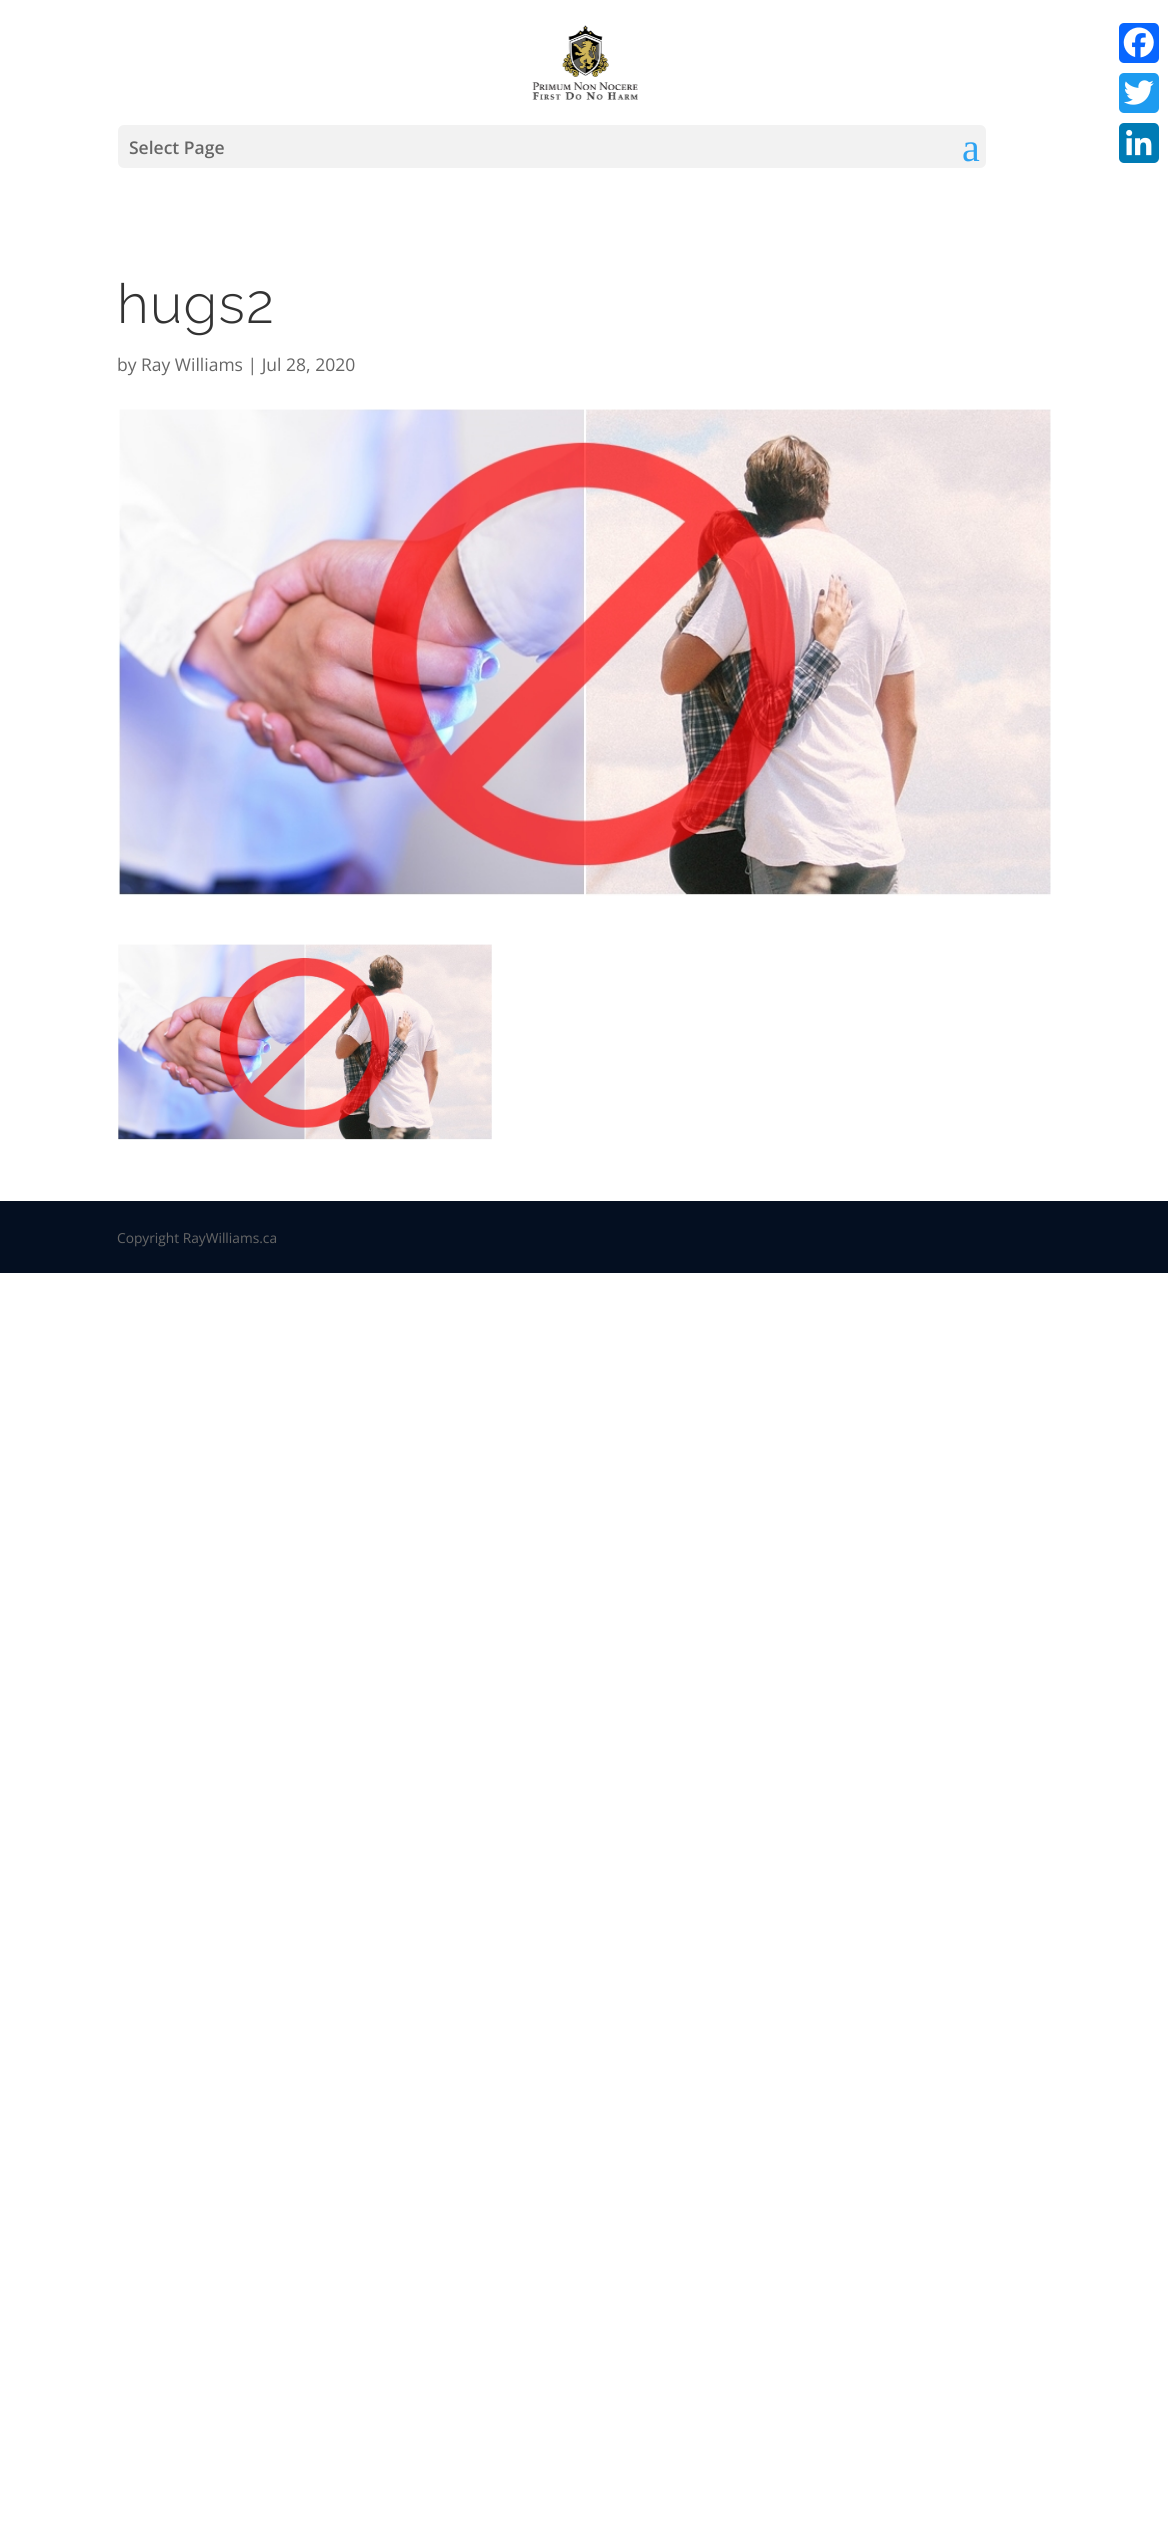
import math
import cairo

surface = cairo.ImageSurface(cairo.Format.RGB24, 1168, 2545)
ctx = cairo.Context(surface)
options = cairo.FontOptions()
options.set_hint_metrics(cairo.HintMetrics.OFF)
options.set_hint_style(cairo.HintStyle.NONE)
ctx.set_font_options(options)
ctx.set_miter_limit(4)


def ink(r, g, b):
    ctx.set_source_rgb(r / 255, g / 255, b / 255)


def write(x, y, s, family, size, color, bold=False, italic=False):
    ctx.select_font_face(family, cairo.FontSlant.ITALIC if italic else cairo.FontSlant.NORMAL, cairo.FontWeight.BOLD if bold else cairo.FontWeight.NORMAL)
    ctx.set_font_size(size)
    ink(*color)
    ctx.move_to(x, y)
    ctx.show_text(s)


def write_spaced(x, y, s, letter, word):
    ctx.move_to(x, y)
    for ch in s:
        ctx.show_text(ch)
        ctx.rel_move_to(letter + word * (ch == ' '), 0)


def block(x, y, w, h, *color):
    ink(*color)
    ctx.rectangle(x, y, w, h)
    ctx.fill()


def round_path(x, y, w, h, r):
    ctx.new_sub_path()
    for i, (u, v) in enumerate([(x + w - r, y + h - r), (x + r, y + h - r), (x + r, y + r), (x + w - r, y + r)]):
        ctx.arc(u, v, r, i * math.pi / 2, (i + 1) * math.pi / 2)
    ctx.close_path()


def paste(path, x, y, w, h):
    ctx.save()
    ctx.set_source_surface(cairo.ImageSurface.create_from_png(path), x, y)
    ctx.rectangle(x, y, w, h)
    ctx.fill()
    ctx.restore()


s1 = dict(family="Open Sans SemiBold", size=17.5, color=(102, 102, 102))
s2 = dict(family="Liberation Serif", size=40, color=(46, 163, 242))
s3 = dict(family="Open Sans", size=17.5, color=(102, 102, 102))
s4 = dict(family="Open Sans", size=13.75, color=(102, 102, 102))

ink(255, 255, 255)
ctx.paint()
ink(8, 102, 255)
round_path(1119, 23, 40, 40, 5)
ctx.fill()
paste("pic1.png", 1123, 27, 31, 31)
ink(29, 155, 240)
round_path(1119, 73, 40, 40, 5)
ctx.fill()
paste("pic2.png", 1124, 80, 30, 25)
ink(0, 123, 181)
round_path(1119, 123, 40, 40, 5)
ctx.fill()
paste("pic3.png", 1126, 129, 26, 27)
paste("pic4.png", 532, 25, 106, 75)
ink(242, 242, 242)
round_path(118, 125, 868, 43, 6)
ctx.fill()
write(129, 154, "Select Page", **s1)
write(962, 161, "a", **s2)
ctx.select_font_face("Raleway Light")
ctx.set_font_size(55)
ink(51, 51, 51)
write_spaced(117, 323, "hugs2", 1.25, 0)
write(117, 371, "by Ray Williams | Jul 28, 2020", **s3)
paste("pic5.png", 118, 409, 933, 487)
paste("pic6.png", 118, 944, 374, 196)
block(0, 1201, 1168, 72, 4, 15, 33)
write(117, 1243, "Copyright RayWilliams.ca", **s4)
surface.write_to_png("screenshot.png")
